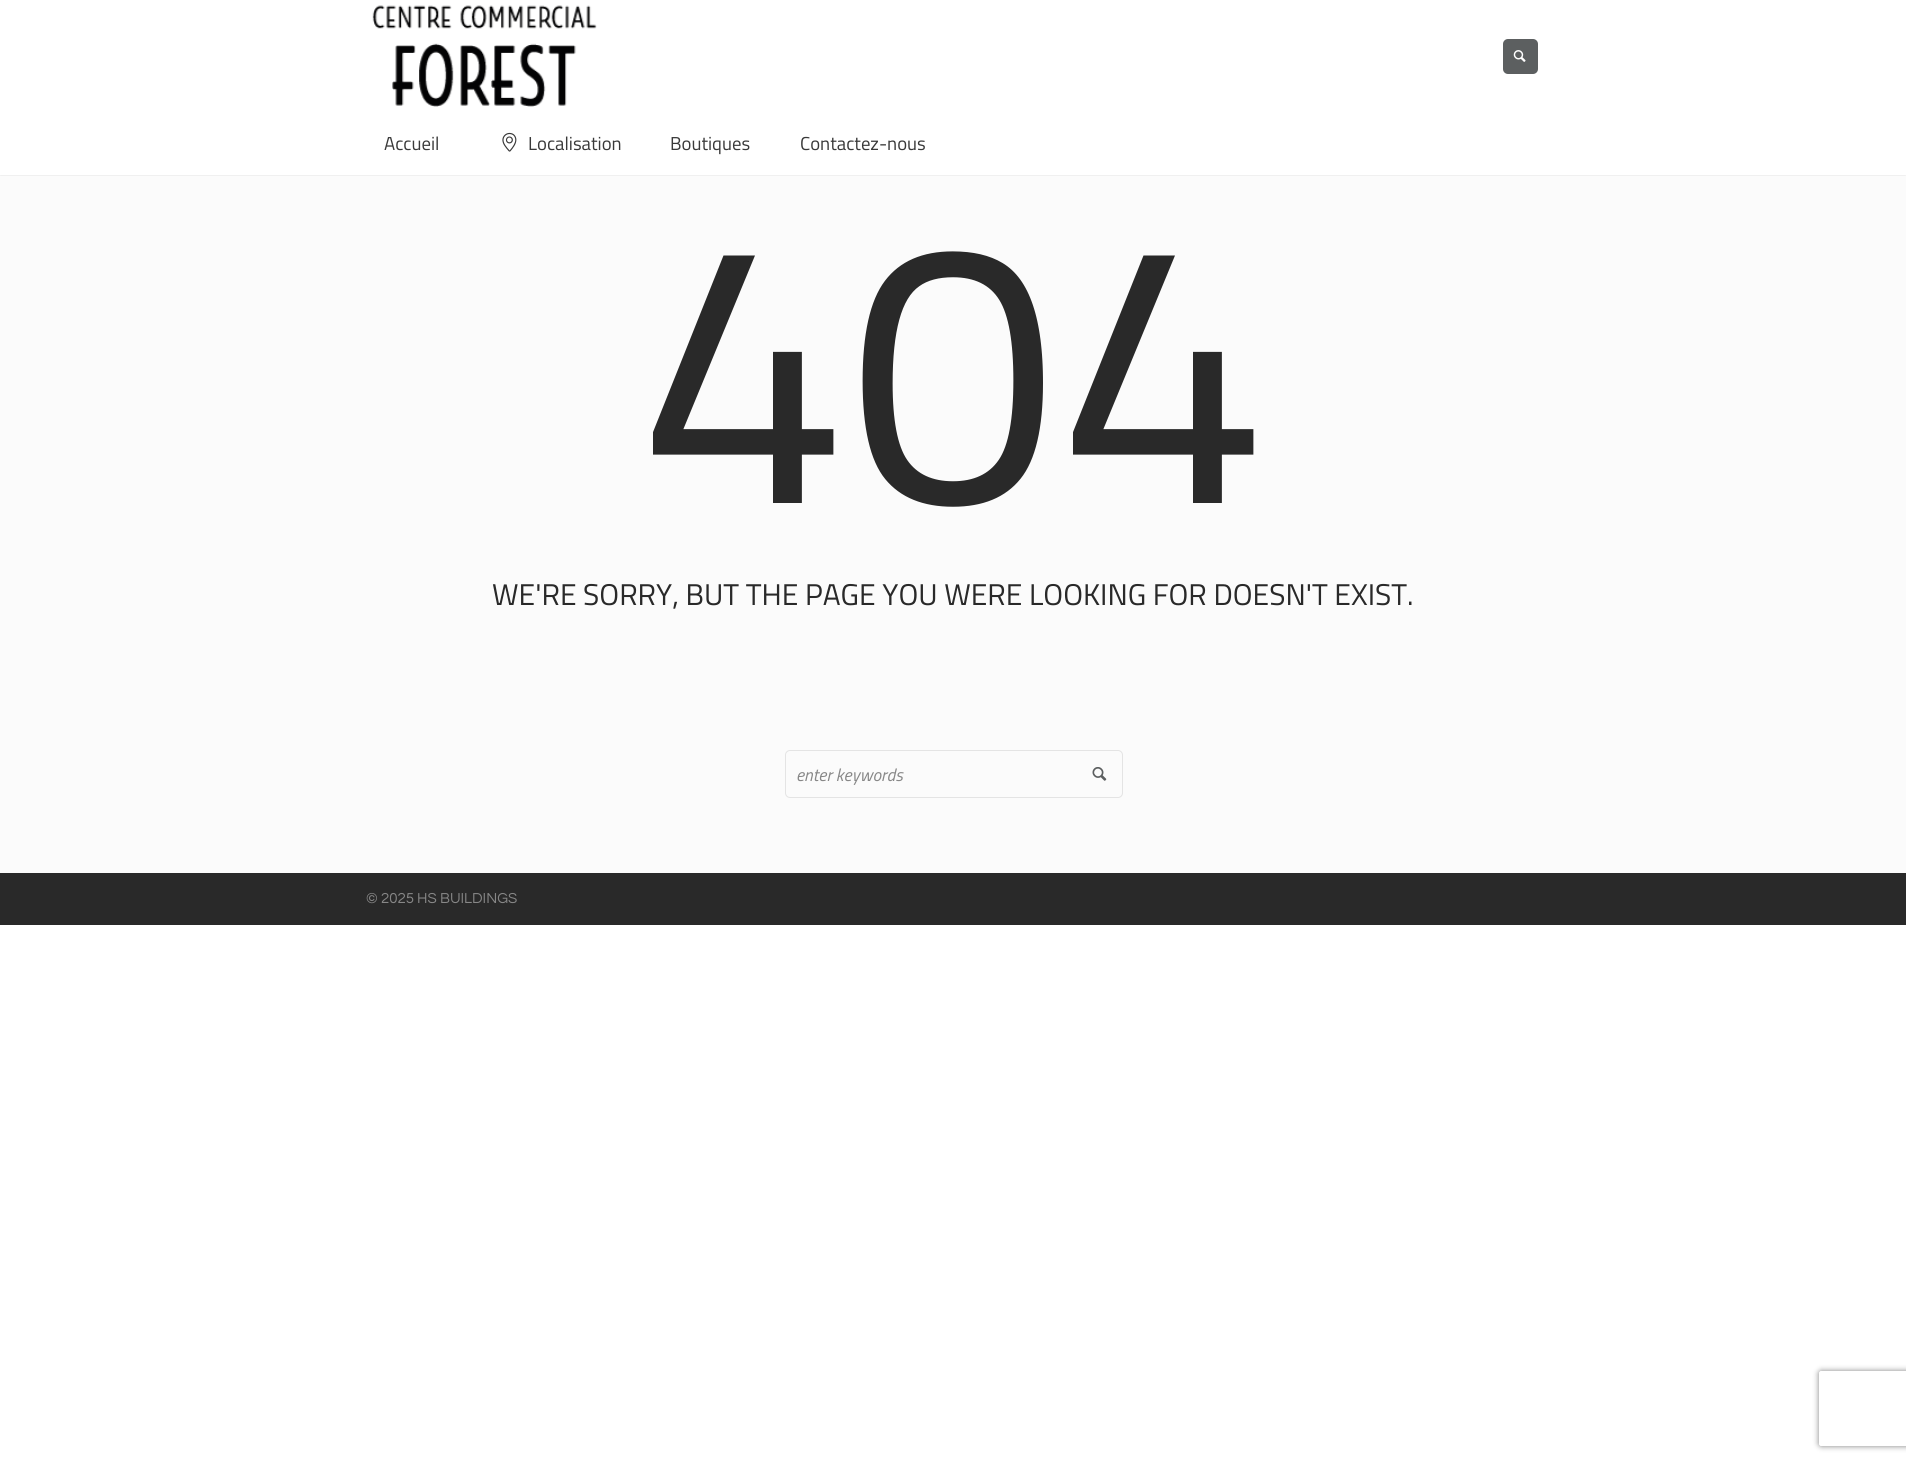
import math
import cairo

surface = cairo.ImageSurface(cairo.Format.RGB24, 1906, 1463)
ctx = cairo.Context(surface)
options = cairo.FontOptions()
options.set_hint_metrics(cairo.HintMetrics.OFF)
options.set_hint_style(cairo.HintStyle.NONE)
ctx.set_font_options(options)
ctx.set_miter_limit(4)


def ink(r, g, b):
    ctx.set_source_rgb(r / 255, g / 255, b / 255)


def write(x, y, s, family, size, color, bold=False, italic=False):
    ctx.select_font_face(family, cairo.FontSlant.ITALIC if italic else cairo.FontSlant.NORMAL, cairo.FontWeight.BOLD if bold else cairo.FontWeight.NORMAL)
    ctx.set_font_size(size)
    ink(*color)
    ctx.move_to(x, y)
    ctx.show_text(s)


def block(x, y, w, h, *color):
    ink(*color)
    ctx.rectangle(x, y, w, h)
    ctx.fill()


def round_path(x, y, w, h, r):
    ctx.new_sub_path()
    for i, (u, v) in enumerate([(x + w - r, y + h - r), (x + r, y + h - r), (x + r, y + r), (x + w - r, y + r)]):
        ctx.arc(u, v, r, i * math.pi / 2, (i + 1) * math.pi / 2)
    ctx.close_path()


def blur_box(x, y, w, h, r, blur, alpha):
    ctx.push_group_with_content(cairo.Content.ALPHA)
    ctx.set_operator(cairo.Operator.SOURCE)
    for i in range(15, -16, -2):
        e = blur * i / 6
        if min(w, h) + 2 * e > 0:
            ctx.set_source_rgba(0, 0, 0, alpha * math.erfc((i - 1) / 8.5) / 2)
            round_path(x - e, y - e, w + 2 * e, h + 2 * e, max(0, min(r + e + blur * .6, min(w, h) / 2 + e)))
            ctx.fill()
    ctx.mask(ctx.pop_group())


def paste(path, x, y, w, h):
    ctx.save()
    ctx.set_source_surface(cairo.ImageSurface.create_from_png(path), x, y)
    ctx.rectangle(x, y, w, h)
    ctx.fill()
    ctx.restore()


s1 = dict(family="Titillium Web", size=18.75, color=(57, 57, 57))
s2 = dict(family="Titillium Web", size=375, color=(41, 41, 41))
s3 = dict(family="Titillium Web", size=30, color=(41, 41, 41))
s4 = dict(family="Titillium Web", size=17.5, color=(135, 135, 135), italic=True)
s5 = dict(family="Questrial", size=15, color=(135, 135, 135))

ink(255, 255, 255)
ctx.paint()
block(0, 175, 1906, 698, 251, 251, 251)
ctx.save()
ctx.rectangle(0, 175, 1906, 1)
ctx.clip()
ink(0, 0, 0)
blur_box(0, 1, 1906, 175, 0, 0.5, 0.05)
ctx.restore()
paste("pic1.png", 372, 5, 225, 102)
ink(92, 95, 96)
round_path(1503, 39, 35, 35, 5)
ctx.fill()
paste("pic2.png", 1513, 50, 13, 12)
write(384, 150, "Accueil", **s1)
paste("pic3.png", 502, 132, 15, 20)
write(528, 150, "Localisation", **s1)
write(670, 150, "Boutiques", **s1)
write(800, 150, "Contactez-nous", **s1)
write(638, 503, "404", **s2)
write(492, 605, "WE'RE SORRY, BUT THE PAGE YOU WERE LOOKING FOR DOESN'T EXIST.", **s3)
round_path(785.5, 750.5, 337, 47, 4.5)
ink(228, 228, 228)
ctx.set_line_width(1)
ctx.stroke()
write(796, 781, "enter keywords", **s4)
paste("pic4.png", 1092, 767, 15, 14)
block(0, 873, 1906, 52, 41, 41, 41)
write(366, 903, "© 2025 HS BUILDINGS", **s5)
ctx.save()
ctx.set_fill_rule(cairo.FillRule.EVEN_ODD)
ctx.new_path()
ctx.move_to(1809, 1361)
ctx.line_to(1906, 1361)
ctx.line_to(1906, 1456)
ctx.line_to(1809, 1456)
ctx.close_path()
ctx.move_to(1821.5, 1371)
ctx.line_to(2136.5, 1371)
ctx.curve_to(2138, 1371, 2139, 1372, 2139, 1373.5)
ctx.line_to(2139, 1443.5)
ctx.curve_to(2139, 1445, 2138, 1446, 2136.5, 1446)
ctx.line_to(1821.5, 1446)
ctx.curve_to(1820, 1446, 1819, 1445, 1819, 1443.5)
ctx.line_to(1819, 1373.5)
ctx.curve_to(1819, 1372, 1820, 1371, 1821.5, 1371)
ctx.close_path()
ctx.clip()
ink(128, 128, 128)
blur_box(1819, 1371, 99, 75, 2.5, 3, 1)
ctx.restore()
surface.write_to_png("screenshot.png")
